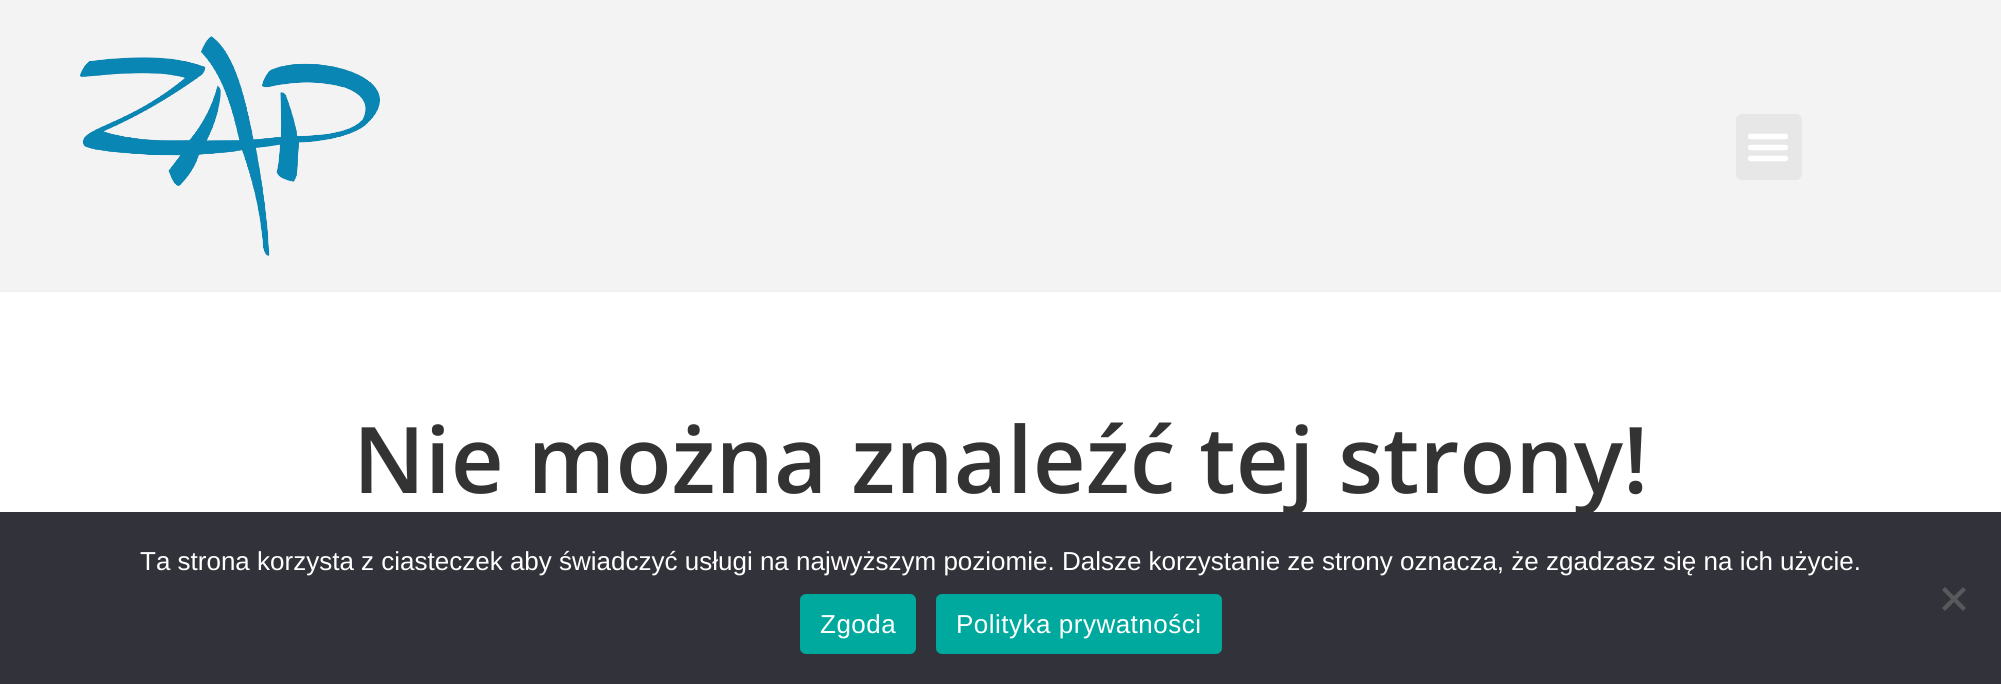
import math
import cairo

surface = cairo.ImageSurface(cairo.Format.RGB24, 2001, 684)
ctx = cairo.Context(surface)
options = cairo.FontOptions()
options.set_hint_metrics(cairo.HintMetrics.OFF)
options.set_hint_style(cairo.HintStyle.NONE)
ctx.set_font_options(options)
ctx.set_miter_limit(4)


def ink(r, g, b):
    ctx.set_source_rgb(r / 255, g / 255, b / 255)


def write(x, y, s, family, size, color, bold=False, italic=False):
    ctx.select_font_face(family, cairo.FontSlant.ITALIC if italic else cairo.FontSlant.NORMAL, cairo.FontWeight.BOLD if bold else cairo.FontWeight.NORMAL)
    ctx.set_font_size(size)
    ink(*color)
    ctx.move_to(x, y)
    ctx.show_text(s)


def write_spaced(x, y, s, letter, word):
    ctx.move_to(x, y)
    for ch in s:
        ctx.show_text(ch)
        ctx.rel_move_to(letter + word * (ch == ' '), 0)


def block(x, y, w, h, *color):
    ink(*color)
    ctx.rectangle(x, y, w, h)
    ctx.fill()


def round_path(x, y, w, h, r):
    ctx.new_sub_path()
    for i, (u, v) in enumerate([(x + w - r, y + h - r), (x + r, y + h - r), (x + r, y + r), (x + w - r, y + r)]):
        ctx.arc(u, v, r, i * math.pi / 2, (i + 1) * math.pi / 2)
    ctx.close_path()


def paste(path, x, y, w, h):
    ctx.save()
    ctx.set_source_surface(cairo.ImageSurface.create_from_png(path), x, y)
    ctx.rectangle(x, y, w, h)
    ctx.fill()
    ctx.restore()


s1 = dict(family="Open Sans SemiBold", size=92, color=(51, 51, 51))
s2 = dict(family="Liberation Sans", size=26, color=(255, 255, 255))

ink(255, 255, 255)
ctx.paint()
block(0, 290, 2001, 2, 241, 241, 241)
block(0, 2, 2001, 288, 243, 243, 243)
block(0, 0, 2001, 2, 244, 244, 244)
paste("pic1.png", 80, 36, 300, 220)
ink(231, 231, 231)
round_path(1736, 114, 66, 66, 6)
ctx.fill()
paste("pic2.png", 1748, 133, 40, 29)
write(353, 493, "Nie można znaleźć tej strony!", **s1)
block(0, 512, 2001, 172, 50, 50, 58)
write(140, 570, "Ta strona korzysta z ciasteczek aby świadczyć usługi na najwyższym poziomie. Dalsze korzystanie ze strony oznacza, że zgadzasz się na ich użycie.", **s2)
ink(89, 89, 93)
ctx.new_path()
ctx.move_to(1963, 587)
ctx.line_to(1966, 590)
ctx.line_to(1945, 611)
ctx.line_to(1942, 608)
ctx.close_path()
ctx.fill()
ctx.new_path()
ctx.move_to(1942, 590)
ctx.line_to(1945, 587)
ctx.line_to(1966, 608)
ctx.line_to(1963, 611)
ctx.close_path()
ctx.fill()
ink(0, 169, 157)
round_path(800, 594, 116, 60, 6)
ctx.fill()
ink(255, 255, 255)
write_spaced(820, 633, "Zgoda", 0.5, 0)
ink(0, 169, 157)
round_path(936, 594, 286, 60, 6)
ctx.fill()
ink(255, 255, 255)
write_spaced(956, 633, "Polityka prywatności", 0.5, 0)
surface.write_to_png("screenshot.png")
